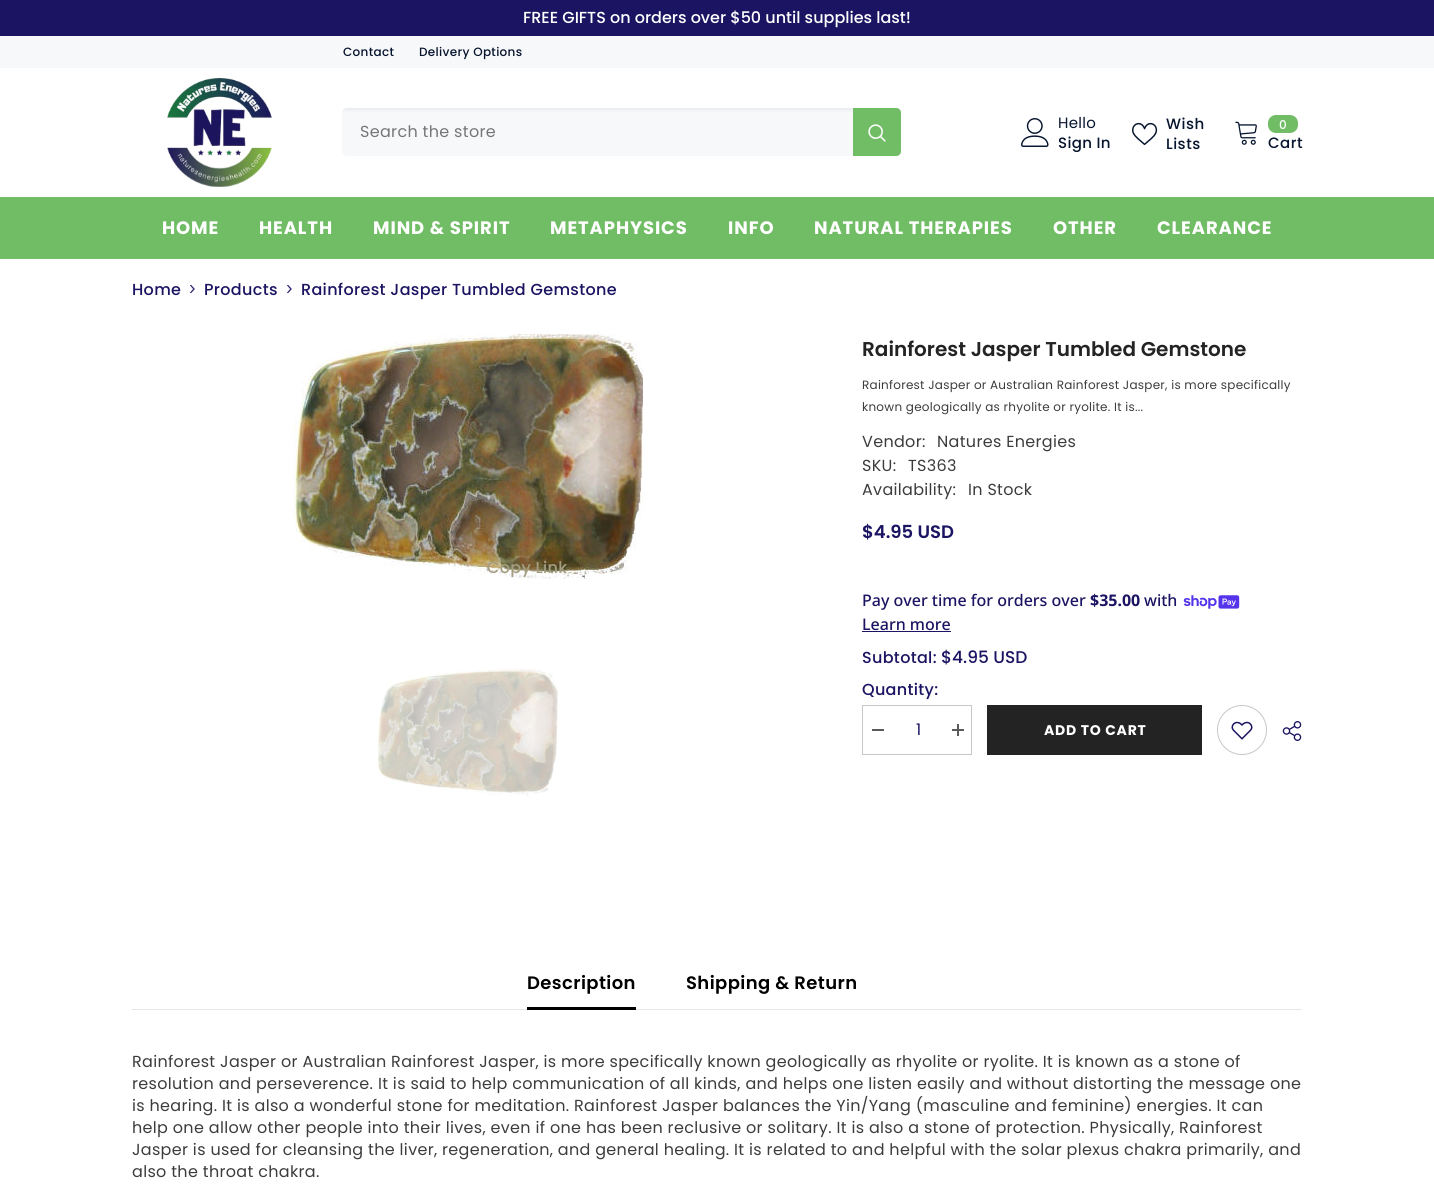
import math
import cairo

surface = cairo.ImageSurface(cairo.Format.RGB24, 1434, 1197)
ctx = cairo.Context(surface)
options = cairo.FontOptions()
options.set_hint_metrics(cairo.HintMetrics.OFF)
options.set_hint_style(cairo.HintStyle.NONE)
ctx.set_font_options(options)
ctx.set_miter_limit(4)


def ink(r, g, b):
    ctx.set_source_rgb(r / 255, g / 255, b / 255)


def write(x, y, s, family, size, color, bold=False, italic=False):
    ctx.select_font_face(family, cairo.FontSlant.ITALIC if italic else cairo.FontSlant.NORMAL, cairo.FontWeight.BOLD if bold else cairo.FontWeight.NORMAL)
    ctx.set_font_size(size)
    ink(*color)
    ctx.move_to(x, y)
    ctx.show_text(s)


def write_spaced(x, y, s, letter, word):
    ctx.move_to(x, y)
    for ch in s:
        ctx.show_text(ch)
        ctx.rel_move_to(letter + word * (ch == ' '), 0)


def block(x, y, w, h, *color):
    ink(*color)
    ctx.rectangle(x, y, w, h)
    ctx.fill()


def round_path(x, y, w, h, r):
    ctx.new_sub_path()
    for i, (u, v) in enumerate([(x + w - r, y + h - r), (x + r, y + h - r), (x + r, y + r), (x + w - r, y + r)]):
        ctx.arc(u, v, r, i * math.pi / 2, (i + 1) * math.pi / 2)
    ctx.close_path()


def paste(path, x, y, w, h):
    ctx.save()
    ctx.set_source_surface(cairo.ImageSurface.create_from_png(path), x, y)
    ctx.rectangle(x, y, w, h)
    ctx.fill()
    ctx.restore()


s1 = dict(family="Poppins Medium", size=16, color=(255, 255, 255))
s2 = dict(family="Poppins Medium", size=12, color=(255, 255, 255))
s3 = dict(family="Poppins SemiBold", size=20, color=(35, 35, 35))
s4 = dict(family="Poppins SemiBold", size=18, color=(27, 20, 98))
s5 = dict(family="Poppins Medium", size=17, color=(27, 20, 98))
s6 = dict(family="Noto Sans Medium", size=16, color=(27, 20, 98))
s7 = dict(family="Noto Sans", size=16, color=(27, 20, 98), bold=True)

ink(255, 255, 255)
ctx.paint()
block(0, 0, 1434, 36, 27, 20, 98)
write(523, 23, "FREE GIFTS on orders over $50 until supplies last!", **s1)
block(0, 36, 1434, 32, 247, 248, 250)
ctx.set_font_size(12)
ink(6, 20, 46)
write_spaced(343, 56, "Contact", 0.32, 0)
write_spaced(419, 56, "Delivery Options", 0.32, 0)
paste("pic1.png", 167, 78, 105, 109)
gradient = cairo.LinearGradient(622, 108, 622, 156)
gradient.add_color_stop_rgba(0, 0.914, 0.922, 0.933, 1)
gradient.add_color_stop_rgba(0.1, 0.969, 0.973, 0.98, 1)
gradient.add_color_stop_rgba(1, 0.969, 0.973, 0.98, 1)
ctx.set_source(gradient)
round_path(342, 108, 559, 48, 5)
ctx.fill()
ctx.select_font_face("Poppins")
ctx.set_font_size(16)
ink(118, 118, 118)
write_spaced(360, 137, "Search the store", 0.32, 0)
ink(113, 189, 101)
ctx.new_path()
ctx.move_to(853, 108)
ctx.line_to(896, 108)
ctx.curve_to(899, 108, 901, 110, 901, 113)
ctx.line_to(901, 151)
ctx.curve_to(901, 154, 899, 156, 896, 156)
ctx.line_to(853, 156)
ctx.close_path()
ctx.fill()
paste("pic2.png", 868, 124, 18, 18)
paste("pic3.png", 1021, 118, 28, 29)
ctx.set_font_size(15)
ink(6, 20, 46)
write_spaced(1058, 128, "Hello", 0.32, 0)
ctx.select_font_face("Poppins Medium")
write_spaced(1058, 148, "Sign In", 0.32, 0)
paste("pic4.png", 1132, 122, 26, 24)
write_spaced(1166, 129, "Wish", 0.5, 0)
write_spaced(1166, 149, "Lists", 0.5, 0)
paste("pic5.png", 1235, 121, 22, 24)
ink(113, 189, 101)
round_path(1268, 115, 30, 18, 8)
ctx.fill()
write(1279, 129, "0", **s2)
ctx.set_font_size(15)
ink(6, 20, 46)
write_spaced(1268, 148, "Cart", 0.5, 0)
block(0, 197, 1434, 62, 113, 189, 101)
ctx.select_font_face("Poppins", cairo.FontSlant.NORMAL, cairo.FontWeight.BOLD)
ctx.set_font_size(18)
ink(255, 255, 255)
write_spaced(162, 234, "HOME", 0.9, 0)
write_spaced(259, 234, "HEALTH", 0.9, 0)
write_spaced(373, 234, "MIND & SPIRIT", 0.9, 0)
write_spaced(550, 234, "METAPHYSICS", 0.9, 0)
write_spaced(728, 234, "INFO", 0.9, 0)
write_spaced(814, 234, "NATURAL THERAPIES", 0.9, 0)
write_spaced(1053, 234, "OTHER", 0.9, 0)
write_spaced(1157, 234, "CLEARANCE", 0.9, 0)
ctx.select_font_face("Poppins Medium")
ctx.set_font_size(16)
ink(27, 20, 98)
write_spaced(132, 295, "Home", 0.32, 0)
paste("pic6.png", 190, 284, 5, 10)
write_spaced(204, 295, "Products", 0.32, 0)
paste("pic6.png", 287, 284, 5, 10)
write_spaced(301, 295, "Rainforest Jasper Tumbled Gemstone", 0.32, 0)
paste("pic7.png", 293, 334, 350, 245)
paste("pic8.png", 377, 669, 181, 127)
write(862, 356, "Rainforest Jasper Tumbled Gemstone", **s3)
ctx.select_font_face("Poppins")
ctx.set_font_size(12)
ink(60, 60, 60)
write_spaced(862, 389, "Rainforest Jasper or Australian Rainforest Jasper, is more specifically", 0.25, 0)
write_spaced(862, 411, "known geologically as rhyolite or ryolite. It is...", 0.25, 0)
ctx.set_font_size(16)
write_spaced(862, 447, "Vendor:", 0.32, 0)
write_spaced(937, 447, "Natures Energies", 0.32, 0)
write_spaced(862, 471, "SKU:", 0.32, 0)
write_spaced(908, 471, "TS363", 0.32, 0)
write_spaced(862, 495, "Availability:", 0.32, 0)
write_spaced(968, 495, "In Stock", 0.32, 0)
write(862, 538, "$4.95 USD", **s4)
ctx.select_font_face("Poppins Medium")
ctx.set_font_size(16)
ink(165, 157, 130)
write_spaced(487, 573, "Copy Link", 0.32, 0)
paste("pic9.png", 1282, 721, 20, 20)
block(987, 705, 215, 50, 35, 35, 35)
ctx.select_font_face("Poppins", cairo.FontSlant.NORMAL, cairo.FontWeight.BOLD)
ctx.set_font_size(14)
ink(255, 255, 255)
write_spaced(1044, 735, "ADD TO CART", 0.75, 0)
ctx.new_path()
ctx.arc(1242, 730, 24.5, 0, 2 * math.pi)
ink(199, 199, 199)
ctx.set_line_width(1)
ctx.stroke()
paste("pic10.png", 1231, 721, 22, 19)
ctx.select_font_face("Poppins Medium")
ctx.set_font_size(16)
ink(27, 20, 98)
write_spaced(862, 695, "Quantity:", 0.32, 0)
ctx.rectangle(862.5, 705.5, 109, 49)
ink(199, 199, 199)
ctx.stroke()
block(872, 729, 12, 2, 90, 90, 90)
ctx.select_font_face("Poppins")
ink(27, 20, 98)
write_spaced(916, 735, "1", 0.32, 0)
block(952, 729, 12, 2, 90, 90, 90)
block(957, 724, 2, 12, 90, 90, 90)
ctx.select_font_face("Poppins Medium")
ink(27, 20, 98)
write_spaced(862, 663, "Subtotal:", 0.32, 0)
write(941, 663, "$4.95 USD", **s5)
write(862, 606, "Pay over time for orders over", **s6)
write(1090, 606, "$35.00", **s7)
write(1144, 606, "with", **s6)
paste("pic11.png", 1183, 595, 57, 14)
write(862, 630, "Learn more", **s6)
block(862, 631, 89, 1, 27, 20, 98)
block(132, 1009, 1170, 1, 230, 230, 230)
ctx.select_font_face("Poppins SemiBold")
ctx.set_font_size(18)
ink(0, 0, 0)
write_spaced(527, 989, "Description", 0.4, 0)
block(527, 1007, 109, 3, 0, 0, 0)
write_spaced(686, 989, "Shipping & Return", 0.4, 0)
ctx.select_font_face("Poppins")
ctx.set_font_size(16)
ink(60, 60, 60)
write_spaced(132, 1067, "Rainforest Jasper or Australian Rainforest Jasper, is more specifically known geologically as rhyolite or ryolite. It is known as a stone of", 0.32, 0)
write_spaced(132, 1089, "resolution and perseverence. It is said to help communication of all kinds, and helps one listen easily and without distorting the message one", 0.32, 0)
write_spaced(132, 1111, "is hearing. It is also a wonderful stone for meditation. Rainforest Jasper balances the Yin/Yang (masculine and feminine) energies. It can", 0.32, 0)
write_spaced(132, 1133, "help one allow other people into their lives, even if one has been reclusive or solitary. It is also a stone of protection. Physically, Rainforest", 0.32, 0)
write_spaced(132, 1155, "Jasper is used for cleansing the liver, regeneration, and general healing. It is related to and helpful with the solar plexus chakra primarily, and", 0.32, 0)
write_spaced(132, 1177, "also the throat chakra.", 0.32, 0)
surface.write_to_png("screenshot.png")
